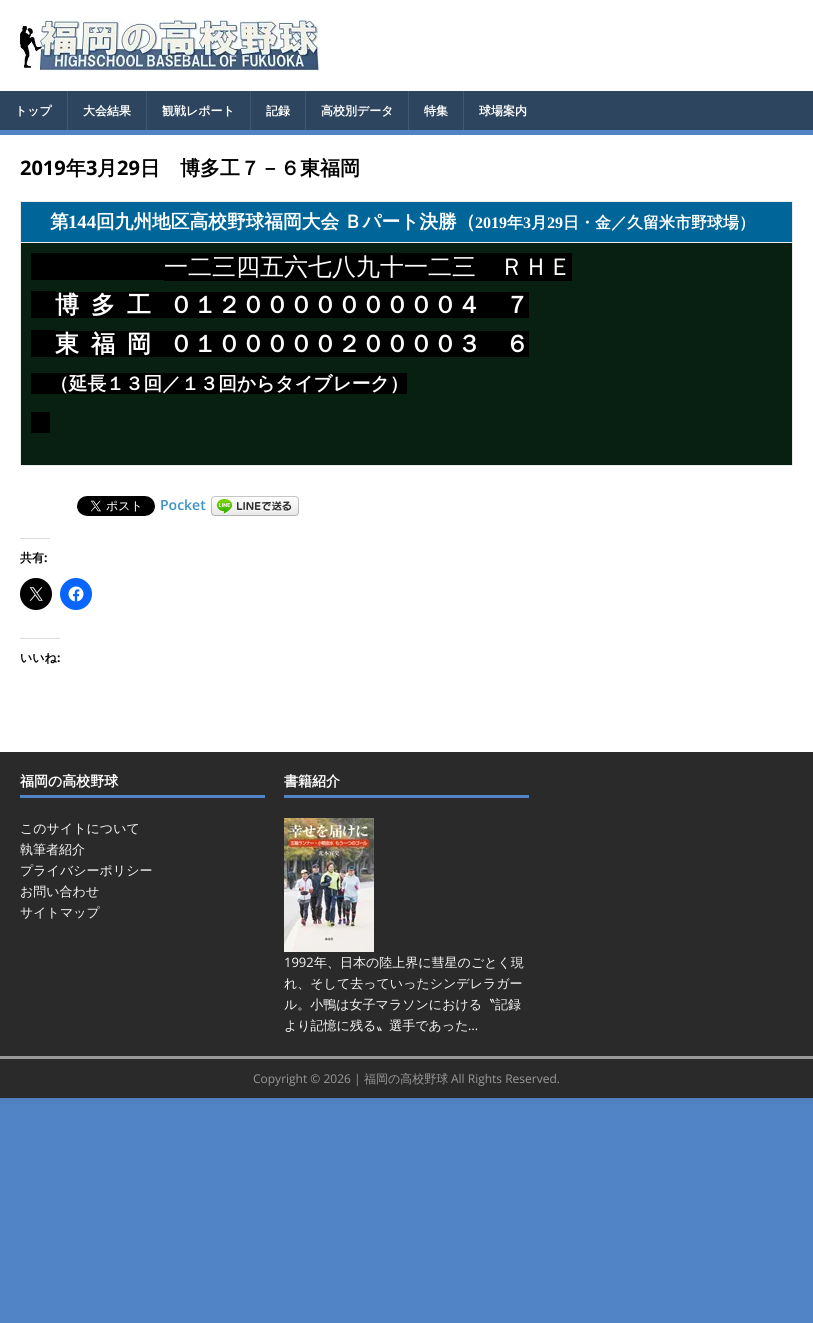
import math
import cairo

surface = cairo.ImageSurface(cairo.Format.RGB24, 813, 1323)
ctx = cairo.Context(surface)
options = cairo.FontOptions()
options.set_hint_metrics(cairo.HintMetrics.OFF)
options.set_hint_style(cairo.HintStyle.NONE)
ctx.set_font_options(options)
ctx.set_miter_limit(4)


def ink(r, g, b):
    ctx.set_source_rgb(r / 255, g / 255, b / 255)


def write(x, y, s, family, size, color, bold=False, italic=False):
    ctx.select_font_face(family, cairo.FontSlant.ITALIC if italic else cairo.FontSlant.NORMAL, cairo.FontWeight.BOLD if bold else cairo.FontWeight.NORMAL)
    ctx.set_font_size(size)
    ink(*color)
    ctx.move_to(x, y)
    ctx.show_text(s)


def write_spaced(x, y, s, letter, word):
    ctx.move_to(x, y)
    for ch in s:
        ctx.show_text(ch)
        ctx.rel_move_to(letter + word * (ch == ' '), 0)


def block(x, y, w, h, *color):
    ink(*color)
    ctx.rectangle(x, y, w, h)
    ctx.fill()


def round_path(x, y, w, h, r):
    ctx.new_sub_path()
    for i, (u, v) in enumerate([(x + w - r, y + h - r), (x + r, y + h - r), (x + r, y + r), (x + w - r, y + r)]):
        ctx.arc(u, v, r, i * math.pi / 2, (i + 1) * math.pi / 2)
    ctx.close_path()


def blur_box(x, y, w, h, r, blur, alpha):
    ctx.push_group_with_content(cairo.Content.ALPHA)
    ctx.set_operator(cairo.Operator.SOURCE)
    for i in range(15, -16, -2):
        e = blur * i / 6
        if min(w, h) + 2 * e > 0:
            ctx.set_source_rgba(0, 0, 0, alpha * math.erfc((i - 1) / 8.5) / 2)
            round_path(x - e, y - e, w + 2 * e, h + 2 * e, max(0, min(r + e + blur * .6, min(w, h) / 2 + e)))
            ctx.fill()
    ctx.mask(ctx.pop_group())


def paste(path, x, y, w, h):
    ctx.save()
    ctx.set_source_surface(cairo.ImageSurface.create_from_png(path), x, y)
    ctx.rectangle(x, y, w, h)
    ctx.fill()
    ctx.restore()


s1 = dict(family="WenQuanYi Zen Hei", size=12, color=(255, 255, 255), bold=True)
s2 = dict(family="Open Sans", size=20, color=(0, 0, 0), bold=True)
s3 = dict(family="WenQuanYi Zen Hei", size=20, color=(0, 0, 0), bold=True)
s4 = dict(family="WenQuanYi Zen Hei", size=18.7, color=(255, 255, 255), bold=True)
s5 = dict(family="Liberation Serif", size=18.7, color=(255, 255, 255), bold=True)
s6 = dict(family="Liberation Serif", size=16, color=(255, 255, 255), bold=True)
s7 = dict(family="WenQuanYi Zen Hei", size=16, color=(255, 255, 255), bold=True)
s8 = dict(family="WenQuanYi Zen Hei Medium", size=24, color=(255, 255, 255))
s9 = dict(family="WenQuanYi Zen Hei", size=24, color=(255, 255, 255), bold=True)
s10 = dict(family="Open Sans SemiBold", size=14, color=(61, 146, 198))
s11 = dict(family="WenQuanYi Zen Hei", size=12, color=(0, 0, 0), bold=True)
s12 = dict(family="Open Sans", size=12, color=(0, 0, 0), bold=True)
s13 = dict(family="WenQuanYi Zen Hei", size=14, color=(255, 255, 255), bold=True)
s14 = dict(family="WenQuanYi Zen Hei Medium", size=13, color=(247, 247, 247))
s15 = dict(family="Open Sans", size=13, color=(247, 247, 247))
s16 = dict(family="Open Sans", size=12, color=(153, 153, 153))
s17 = dict(family="WenQuanYi Zen Hei Medium", size=12, color=(153, 153, 153))

ink(81, 132, 198)
ctx.paint()
ink(50, 50, 50)
blur_box(0, 0, 813, 1098, 0, 5, 0.17)
block(0, 0, 813, 91, 255, 255, 255)
paste("pic1.png", 20, 20, 300, 51)
block(0, 91, 813, 39, 45, 69, 94)
block(0, 130, 813, 5, 81, 132, 198)
write(15, 115, "トップ", **s1)
block(67, 91, 1, 39, 66, 88, 110)
write(83, 115, "大会結果", **s1)
block(146, 91, 1, 39, 66, 88, 110)
write(162, 115, "観戦レポート", **s1)
block(250, 91, 1, 39, 66, 88, 110)
write(266, 115, "記録", **s1)
block(305, 91, 1, 39, 66, 88, 110)
write(321, 115, "高校別データ", **s1)
block(408, 91, 1, 39, 66, 88, 110)
write(424, 115, "特集", **s1)
block(463, 91, 1, 39, 66, 88, 110)
write(479, 115, "球場案内", **s1)
block(0, 135, 813, 617, 255, 255, 255)
write(20, 175, "2019", **s2)
write(66, 175, "年", **s3)
write(86, 175, "3", **s2)
write(97, 175, "月", **s3)
write(117, 175, "29", **s2)
write(140, 175, "日　博多工７－６東福岡", **s3)
block(20, 201, 773, 1, 235, 235, 235)
block(20, 201, 1, 265, 235, 235, 235)
block(21, 202, 771, 40, 0, 102, 153)
block(792, 201, 1, 265, 235, 235, 235)
block(20, 242, 773, 1, 235, 235, 235)
write(50, 228, "第", **s4)
write(68, 228, "144", **s5)
ctx.select_font_face("WenQuanYi Zen Hei", cairo.FontSlant.NORMAL, cairo.FontWeight.BOLD)
write_spaced(96, 228, "回九州地区高校野球福岡大会 Ｂパート決勝（", 0, -1)
write(475, 228, "2019", **s6)
write(507, 228, "年", **s7)
write(523, 228, "3", **s6)
write(531, 228, "月", **s7)
write(547, 228, "29", **s6)
write(563, 228, "日・金／久留米市野球場）", **s7)
block(21, 243, 771, 222, 8, 32, 18)
block(20, 465, 773, 1, 235, 235, 235)
block(164, 253, 408, 28, 0, 0, 0)
write(164, 275, "一二三四五六七八九十一二三", **s8)
block(31, 253, 133, 27, 0, 0, 0)
write(500, 275, "ＲＨＥ", **s8)
block(55, 292, 474, 26, 0, 0, 0)
write(55, 313, "博", **s9)
block(31, 291, 24, 27, 0, 0, 0)
write(91, 313, "多", **s9)
write(127, 313, "工", **s9)
write(169, 313, "０１２０００００００００４　７", **s9)
block(55, 331, 474, 26, 0, 0, 0)
write(55, 352, "東", **s9)
block(31, 330, 24, 27, 0, 0, 0)
write(91, 352, "福", **s9)
write(127, 352, "岡", **s9)
write(169, 352, "０１０００００２００００３　６", **s9)
block(31, 373, 376, 21, 0, 0, 0)
write(50, 390, "（延長１３回／１３回からタイブレーク）", **s4)
block(31, 412, 19, 21, 0, 0, 0)
paste("pic2.png", 77, 496, 78, 20)
write(160, 510, "Pocket", **s10)
paste("pic3.png", 211, 496, 88, 20)
block(20, 538, 30, 1, 220, 220, 222)
write(20, 562, "共有", **s11)
write(44, 562, ":", **s12)
ctx.new_path()
ctx.arc(36, 594, 16, 0, 2 * math.pi)
ctx.fill()
paste("pic4.png", 29, 587, 14, 14)
ink(8, 102, 255)
ctx.arc(76, 594, 16, 0, 2 * math.pi)
ctx.fill()
paste("pic5.png", 68, 586, 16, 16)
block(20, 638, 40, 1, 220, 220, 222)
write(20, 662, "いいね", **s11)
write(57, 662, ":", **s12)
block(0, 752, 813, 304, 42, 42, 42)
block(20, 795, 245, 3, 81, 132, 198)
write(20, 786, "福岡の高校野球", **s13)
write(20, 833, "このサイトについて", **s14)
write(20, 854, "執筆者紹介", **s14)
write(20, 875, "プライバシーポリシー", **s14)
write(20, 896, "お問い合わせ", **s14)
write(20, 917, "サイトマップ", **s14)
block(284, 795, 245, 3, 81, 132, 198)
write(284, 786, "書籍紹介", **s13)
paste("pic6.png", 284, 818, 90, 134)
write(284, 967, "1992", **s15)
write(314, 967, "年、日本の陸上界に彗星のごとく現", **s14)
write(284, 988, "れ、そして去っていったシンデレラガー", **s14)
write(284, 1009, "ル。小鴨は女子マラソンにおける〝記録", **s14)
write(284, 1030, "より記憶に残る〟選手であった", **s14)
write(468, 1030, "…", **s15)
block(0, 1059, 813, 39, 42, 42, 42)
block(0, 1056, 813, 3, 153, 153, 153)
write(253, 1083, "Copyright © 2026 |", **s16)
write(364, 1083, "福岡の高校野球", **s17)
write(451, 1083, "All Rights Reserved.", **s16)
surface.write_to_png("screenshot.png")
